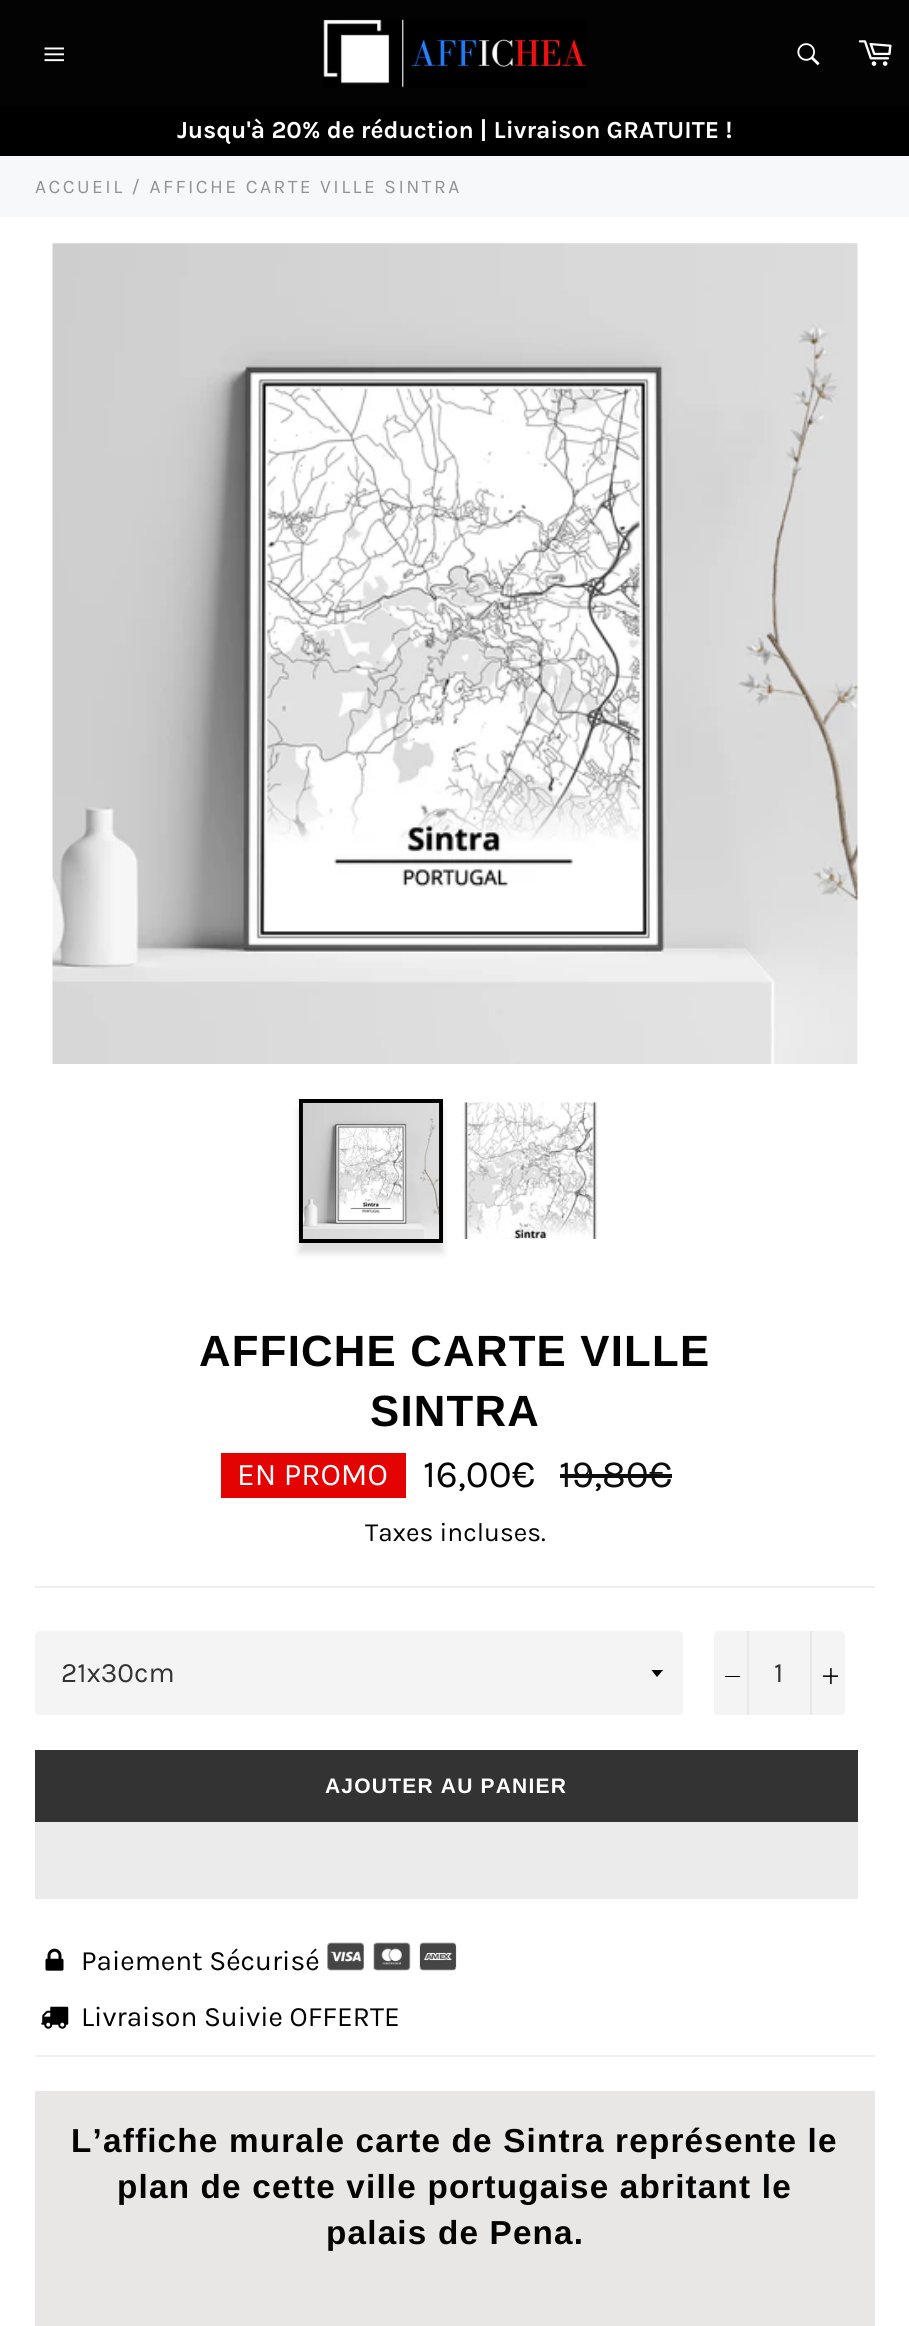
import math
import cairo

surface = cairo.ImageSurface(cairo.Format.RGB24, 909, 2326)
ctx = cairo.Context(surface)
options = cairo.FontOptions()
options.set_hint_metrics(cairo.HintMetrics.OFF)
options.set_hint_style(cairo.HintStyle.NONE)
ctx.set_font_options(options)
ctx.set_miter_limit(4)


def ink(r, g, b):
    ctx.set_source_rgb(r / 255, g / 255, b / 255)


def write(x, y, s, family, size, color, bold=False, italic=False):
    ctx.select_font_face(family, cairo.FontSlant.ITALIC if italic else cairo.FontSlant.NORMAL, cairo.FontWeight.BOLD if bold else cairo.FontWeight.NORMAL)
    ctx.set_font_size(size)
    ink(*color)
    ctx.move_to(x, y)
    ctx.show_text(s)


def write_spaced(x, y, s, letter, word):
    ctx.move_to(x, y)
    for ch in s:
        ctx.show_text(ch)
        ctx.rel_move_to(letter + word * (ch == ' '), 0)


def block(x, y, w, h, *color):
    ink(*color)
    ctx.rectangle(x, y, w, h)
    ctx.fill()


def round_path(x, y, w, h, r):
    ctx.new_sub_path()
    for i, (u, v) in enumerate([(x + w - r, y + h - r), (x + r, y + h - r), (x + r, y + r), (x + w - r, y + r)]):
        ctx.arc(u, v, r, i * math.pi / 2, (i + 1) * math.pi / 2)
    ctx.close_path()


def blur_box(x, y, w, h, r, blur, alpha):
    ctx.push_group_with_content(cairo.Content.ALPHA)
    ctx.set_operator(cairo.Operator.SOURCE)
    for i in range(15, -16, -2):
        e = blur * i / 6
        if min(w, h) + 2 * e > 0:
            ctx.set_source_rgba(0, 0, 0, alpha * math.erfc((i - 1) / 8.5) / 2)
            round_path(x - e, y - e, w + 2 * e, h + 2 * e, max(0, min(r + e + blur * .6, min(w, h) / 2 + e)))
            ctx.fill()
    ctx.mask(ctx.pop_group())


def paste(path, x, y, w, h):
    ctx.save()
    ctx.set_source_surface(cairo.ImageSurface.create_from_png(path), x, y)
    ctx.rectangle(x, y, w, h)
    ctx.fill()
    ctx.restore()


s1 = dict(family="Karla", size=24.5, color=(255, 255, 255), bold=True)
s2 = dict(family="Karla", size=31.5, color=(255, 255, 255))
s3 = dict(family="Karla", size=38.5, color=(3, 3, 3))
s4 = dict(family="Karla", size=38.5, color=(13, 13, 13))
s5 = dict(family="Karla", size=26.25, color=(3, 3, 3))
s6 = dict(family="Karla", size=28, color=(51, 51, 51))
s7 = dict(family="Karla", size=28, color=(3, 3, 3))

ink(3, 3, 3)
ctx.paint()
paste("pic1.png", 44, 47, 20, 15)
paste("pic2.png", 323, 19, 264, 69)
paste("pic3.png", 797, 43, 23, 23)
paste("pic4.png", 858, 40, 34, 26)
block(0, 105, 909, 51, 0, 0, 0)
write(177, 138, "Jusqu'à 20% de réduction | Livraison GRATUITE !", **s1)
block(0, 217, 909, 2109, 255, 255, 255)
block(0, 156, 909, 61, 247, 248, 249)
ctx.select_font_face("Karla")
ctx.set_font_size(19.25)
ink(146, 146, 146)
write_spaced(35, 193, "ACCUEIL / AFFICHE CARTE VILLE SINTRA", 2.45, 0)
paste("pic5.png", 52, 243, 806, 821)
ink(199, 199, 199)
blur_box(299, 1110, 144, 143, 0, 3.5, 0.6)
ctx.rectangle(301, 1101, 140, 140)
ink(0, 0, 0)
ctx.set_line_width(4)
ctx.stroke()
paste("pic6.png", 302, 1102, 138, 137)
paste("pic7.png", 462, 1102, 136, 137)
ctx.select_font_face("Liberation Sans", cairo.FontSlant.NORMAL, cairo.FontWeight.BOLD)
ctx.set_font_size(43.75)
ink(3, 3, 3)
write_spaced(199, 1366, "AFFICHE CARTE VILLE", 1.2, 0)
write_spaced(370, 1426, "SINTRA", 1.2, 0)
block(221, 1453, 185, 45, 228, 3, 3)
write(237, 1485, "EN PROMO", **s2)
write(423, 1487, "16,00€", **s3)
write(559, 1487, "19,80€", **s4)
block(560, 1474, 112, 4, 13, 13, 13)
write(365, 1541, "Taxes incluses.", **s5)
block(35, 1586, 840, 2, 240, 240, 240)
ink(244, 244, 244)
round_path(35, 1631, 648, 84, 4)
ctx.fill()
ctx.save()
ctx.rectangle(651, 1670, 14, 8)
ctx.clip()
ink(0, 0, 0)
ctx.new_path()
ctx.move_to(651, 1669.5)
ctx.line_to(657, 1677)
ctx.line_to(663.5, 1669.5)
ctx.close_path()
ctx.fill()
ctx.restore()
write(61, 1682, "21x30cm", **s6)
ink(244, 244, 244)
round_path(714, 1631, 131, 84, 4)
ctx.fill()
block(747, 1631, 2, 84, 231, 231, 231)
block(725, 1676, 15, 1, 0, 0, 0)
write(774, 1682, "1", **s6)
block(810, 1631, 2, 84, 231, 231, 231)
paste("pic8.png", 823, 1668, 15, 16)
block(35, 1750, 823, 72, 51, 51, 51)
ctx.select_font_face("Liberation Sans", cairo.FontSlant.NORMAL, cairo.FontWeight.BOLD)
ctx.set_font_size(21)
ink(255, 255, 255)
write_spaced(325, 1793, "AJOUTER AU PANIER", 1.2, 0)
block(35, 1822, 823, 77, 235, 235, 235)
paste("pic9.png", 45, 1948, 19, 23)
write(81, 1970, "Paiement Sécurisé", **s7)
paste("pic10.png", 327, 1942, 130, 29)
paste("pic11.png", 41, 2006, 28, 23)
write(81, 2026, "Livraison Suivie OFFERTE", **s7)
block(35, 2055, 840, 2, 240, 240, 240)
block(35, 2091, 840, 235, 233, 230, 230)
ctx.select_font_face("Liberation Sans", cairo.FontSlant.NORMAL, cairo.FontWeight.BOLD)
ctx.set_font_size(33.25)
ink(3, 3, 3)
write_spaced(71, 2152, "L’affiche murale carte de Sintra représente le", 1.2, 0)
write_spaced(117, 2198, "plan de cette ville portugaise abritant le", 1.2, 0)
write_spaced(326, 2244, "palais de Pena.", 1.2, 0)
surface.write_to_png("screenshot.png")
